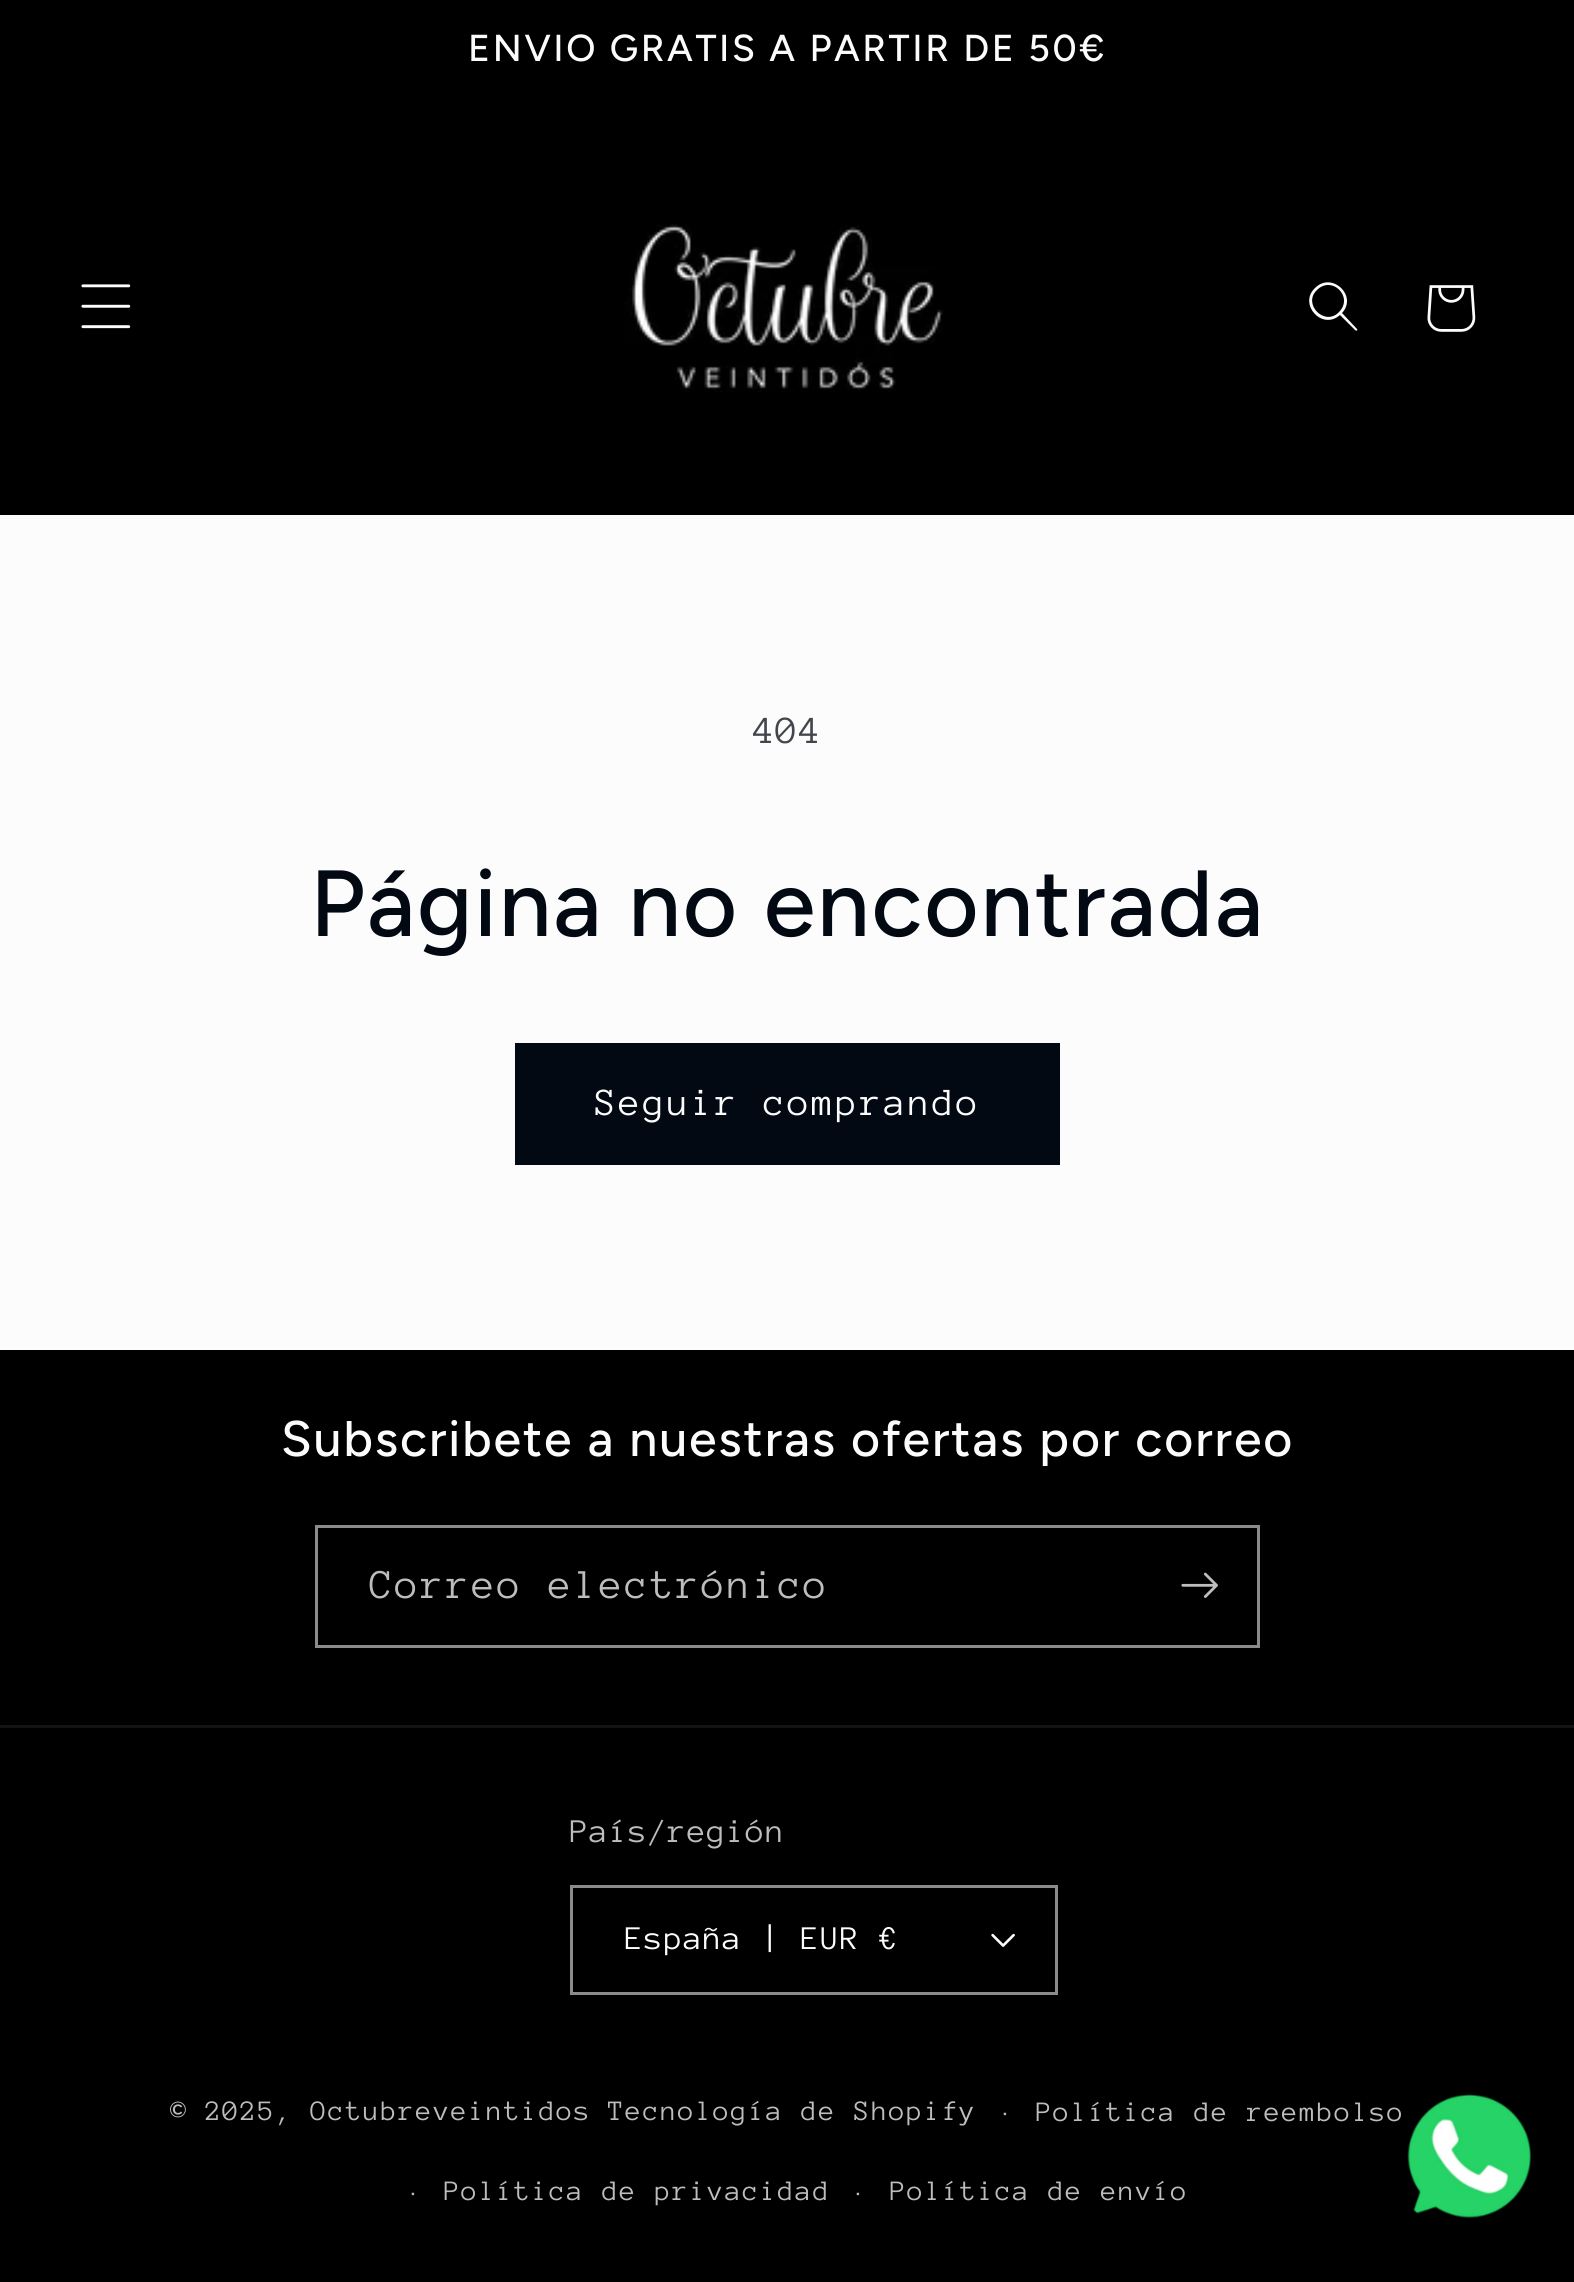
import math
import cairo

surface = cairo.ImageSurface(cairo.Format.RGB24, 1574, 2282)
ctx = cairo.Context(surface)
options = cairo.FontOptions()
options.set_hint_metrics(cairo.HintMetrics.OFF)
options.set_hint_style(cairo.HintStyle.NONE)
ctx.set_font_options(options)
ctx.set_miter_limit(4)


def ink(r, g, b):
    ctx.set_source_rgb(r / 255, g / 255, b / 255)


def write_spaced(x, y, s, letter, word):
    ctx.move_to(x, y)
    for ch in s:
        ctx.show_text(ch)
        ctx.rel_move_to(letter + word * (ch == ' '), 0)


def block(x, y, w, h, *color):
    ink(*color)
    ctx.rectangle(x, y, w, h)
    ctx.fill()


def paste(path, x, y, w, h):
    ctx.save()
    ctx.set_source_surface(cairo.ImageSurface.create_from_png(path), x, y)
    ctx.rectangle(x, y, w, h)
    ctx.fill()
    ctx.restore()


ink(252, 252, 252)
ctx.paint()
block(0, 0, 1574, 515, 0, 0, 0)
paste("pic1.png", 81, 284, 50, 45)
paste("pic2.png", 625, 224, 318, 168)
ink(252, 252, 252)
ctx.set_fill_rule(cairo.FillRule.EVEN_ODD)
ctx.new_path()
ctx.move_to(1339, 312)
ctx.curve_to(1325, 327, 1302, 304, 1317, 290)
ctx.curve_to(1332, 275, 1354, 297, 1339, 312)
ctx.move_to(1340, 315)
ctx.curve_to(1322, 331, 1298, 304, 1315, 288)
ctx.curve_to(1332, 271, 1358, 296, 1342, 313)
ctx.line_to(1357, 329)
ctx.curve_to(1358, 331, 1356, 331, 1355, 330)
ctx.close_path()
ctx.fill()
paste("pic3.png", 1427, 285, 49, 47)
ctx.select_font_face("Figtree Medium")
ctx.set_font_size(37.5)
write_spaced(468, 61, "ENVIO GRATIS A PARTIR DE 50€", 2.6, 0)
ctx.select_font_face("Anonymous Pro")
ctx.set_font_size(39.4)
ink(65, 70, 77)
write_spaced(753, 743, "404", 1.5, 0)
ctx.select_font_face("Figtree Medium")
ctx.set_font_size(93.75)
ink(2, 9, 18)
write_spaced(310, 936, "Página no encontrada", 1.9, 0)
block(515, 1043, 545, 122, 2, 9, 18)
ctx.select_font_face("Anonymous Pro")
ctx.set_font_size(39.4)
ink(252, 252, 252)
write_spaced(595, 1115, "Seguir comprando", 2.6, 0)
block(0, 1350, 1574, 932, 0, 0, 0)
ctx.select_font_face("Figtree Medium")
ctx.set_font_size(50)
ink(252, 252, 252)
write_spaced(281, 1456, "Subscribete a nuestras ofertas por correo", 1.9, 0)
ctx.rectangle(316.5, 1526.5, 942, 120)
ink(139, 139, 139)
ctx.set_line_width(3)
ctx.stroke()
ctx.select_font_face("Anonymous Pro")
ctx.set_font_size(42)
ink(189, 189, 189)
write_spaced(370, 1598, "Correo electrónico", 2.6, 0)
paste("pic4.png", 1181, 1572, 37, 26)
block(0, 1725, 1574, 3, 20, 20, 20)
ctx.set_font_size(34)
ink(189, 189, 189)
write_spaced(570, 1842, "País/región", 1, 0)
paste("pic5.png", 991, 1933, 24, 14)
ctx.rectangle(571.5, 1886.5, 485, 107)
ink(139, 139, 139)
ctx.stroke()
ink(252, 252, 252)
write_spaced(625, 1949, "España | EUR €", 1, 0)
ctx.set_font_size(28.9)
ink(189, 189, 189)
write_spaced(170, 2120, "© 2025, Octubreveintidos", 1.8, 0)
write_spaced(608, 2120, "Tecnología de Shopify", 1.8, 0)
ctx.set_font_size(26)
write_spaced(999, 2120, "·", 1.8, 0)
ctx.set_font_size(28.9)
write_spaced(1036, 2121, "Política de reembolso", 1.8, 0)
ctx.set_font_size(26)
write_spaced(407, 2200, "·", 1.8, 0)
ctx.set_font_size(28.9)
write_spaced(444, 2200, "Política de privacidad", 1.8, 0)
ctx.set_font_size(26)
write_spaced(852, 2200, "·", 1.8, 0)
ctx.set_font_size(28.9)
write_spaced(890, 2200, "Política de envío", 1.8, 0)
paste("pic6.png", 1407, 2094, 124, 124)
surface.write_to_png("screenshot.png")
